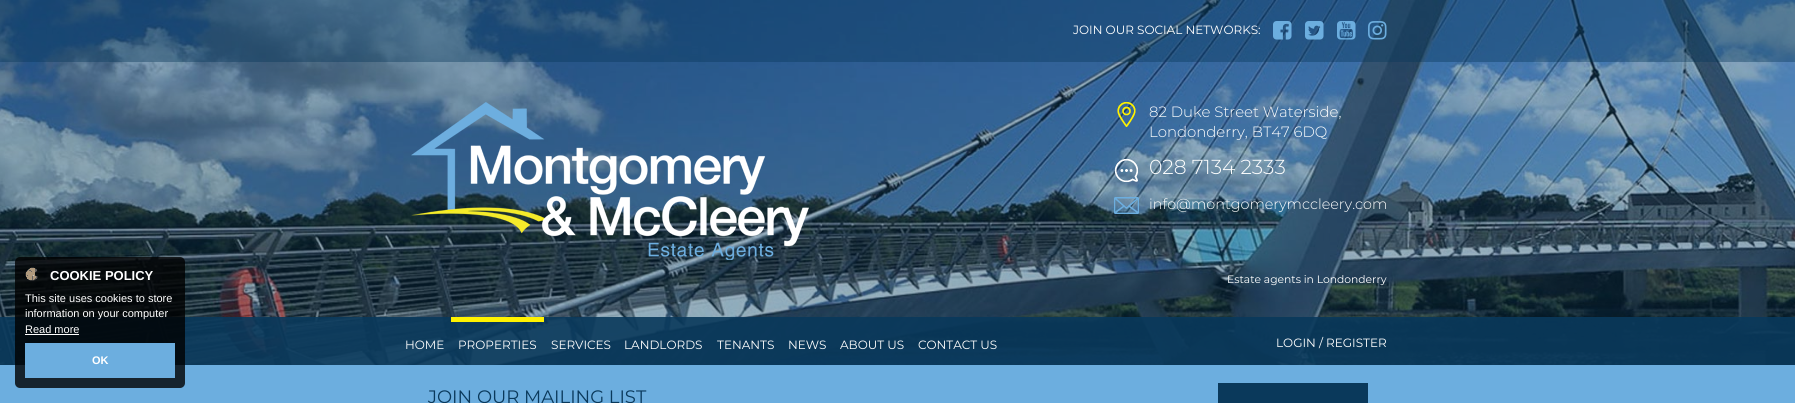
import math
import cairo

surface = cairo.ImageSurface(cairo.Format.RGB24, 1795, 403)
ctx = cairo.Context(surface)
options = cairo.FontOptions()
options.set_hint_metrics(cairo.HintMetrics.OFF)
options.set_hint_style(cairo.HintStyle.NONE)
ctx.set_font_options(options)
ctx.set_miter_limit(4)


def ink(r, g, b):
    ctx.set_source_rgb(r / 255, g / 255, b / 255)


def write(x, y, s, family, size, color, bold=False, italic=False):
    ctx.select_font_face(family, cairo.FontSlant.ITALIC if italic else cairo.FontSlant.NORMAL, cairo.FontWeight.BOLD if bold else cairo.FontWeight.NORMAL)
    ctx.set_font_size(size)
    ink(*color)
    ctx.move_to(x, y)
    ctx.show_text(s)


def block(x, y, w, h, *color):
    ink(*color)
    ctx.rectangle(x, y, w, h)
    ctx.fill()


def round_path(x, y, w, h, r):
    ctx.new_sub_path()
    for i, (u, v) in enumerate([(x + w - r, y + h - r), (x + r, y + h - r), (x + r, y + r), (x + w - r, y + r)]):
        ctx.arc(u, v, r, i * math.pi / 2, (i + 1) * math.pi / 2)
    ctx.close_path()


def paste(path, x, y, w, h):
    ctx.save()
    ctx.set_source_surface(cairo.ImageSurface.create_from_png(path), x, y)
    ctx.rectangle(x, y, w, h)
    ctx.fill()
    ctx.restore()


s1 = dict(family="Liberation Sans", size=13, color=(255, 255, 255), bold=True)
s2 = dict(family="Liberation Sans", size=11, color=(255, 255, 255))
s3 = dict(family="Liberation Sans", size=11, color=(255, 255, 255), bold=True)
s4 = dict(family="Montserrat", size=12, color=(255, 255, 255))
s5 = dict(family="Montserrat Light", size=14.9, color=(255, 255, 255))
s6 = dict(family="Montserrat Light", size=20.25, color=(255, 255, 255))
s7 = dict(family="Montserrat Light", size=14.4, color=(255, 255, 255))
s8 = dict(family="Montserrat", size=10.75, color=(255, 255, 255))
s9 = dict(family="Montserrat", size=18, color=(10, 57, 91))

ink(255, 255, 255)
ctx.paint()
paste("pic2.png", 0, 0, 1795, 365)
ctx.set_source_rgba(0.039, 0.224, 0.357, 0.9)
ctx.rectangle(0, 317, 1795, 48)
ctx.fill()
block(0, 365, 1795, 38, 108, 174, 223)
ctx.set_source_rgba(0, 0, 0, 0.8)
round_path(15, 257, 170, 131, 5)
ctx.fill()
paste("pic1.png", 25, 267, 13, 14)
write(50, 280, "COOKIE POLICY", **s1)
write(25, 302, "This site uses cookies to store", **s2)
write(25, 317, "information on your computer", **s2)
write(25, 333, "Read more", **s2)
block(25, 334, 54, 1, 255, 255, 255)
block(25, 343, 150, 35, 108, 174, 223)
write(92, 364, "OK", **s3)
ctx.set_source_rgba(0.039, 0.224, 0.357, 0.4)
ctx.rectangle(0, 0, 1795, 62)
ctx.fill()
write(1073, 34, "JOIN OUR SOCIAL NETWORKS:", **s4)
paste("pic3.png", 1273, 21, 19, 19)
paste("pic4.png", 1305, 21, 19, 19)
paste("pic5.png", 1337, 21, 19, 19)
paste("pic6.png", 1368, 21, 19, 19)
paste("pic7.png", 411, 102, 398, 158)
paste("pic8.png", 1117, 102, 19, 25)
write(1149, 117, "82 Duke Street Waterside,", **s5)
write(1149, 137, "Londonderry, BT47 6DQ", **s5)
paste("pic9.png", 1114, 159, 24, 23)
write(1149, 174, "028 7134 2333", **s6)
paste("pic10.png", 1114, 197, 25, 17)
write(1149, 209, "info@montgomerymccleery.com", **s7)
write(1227, 283, "Estate agents in Londonderry", **s8)
write(405, 349, "HOME", **s4)
block(451, 317, 93, 5, 255, 242, 0)
write(458, 349, "PROPERTIES", **s4)
write(551, 349, "SERVICES", **s4)
write(624, 349, "LANDLORDS", **s4)
write(717, 349, "TENANTS", **s4)
write(788, 349, "NEWS", **s4)
write(840, 349, "ABOUT US", **s4)
write(918, 349, "CONTACT US", **s4)
write(1276, 347, "LOGIN / REGISTER", **s4)
write(428, 403, "JOIN OUR MAILING LIST", **s9)
block(1218, 383, 150, 20, 10, 57, 91)
surface.write_to_png("screenshot.png")
